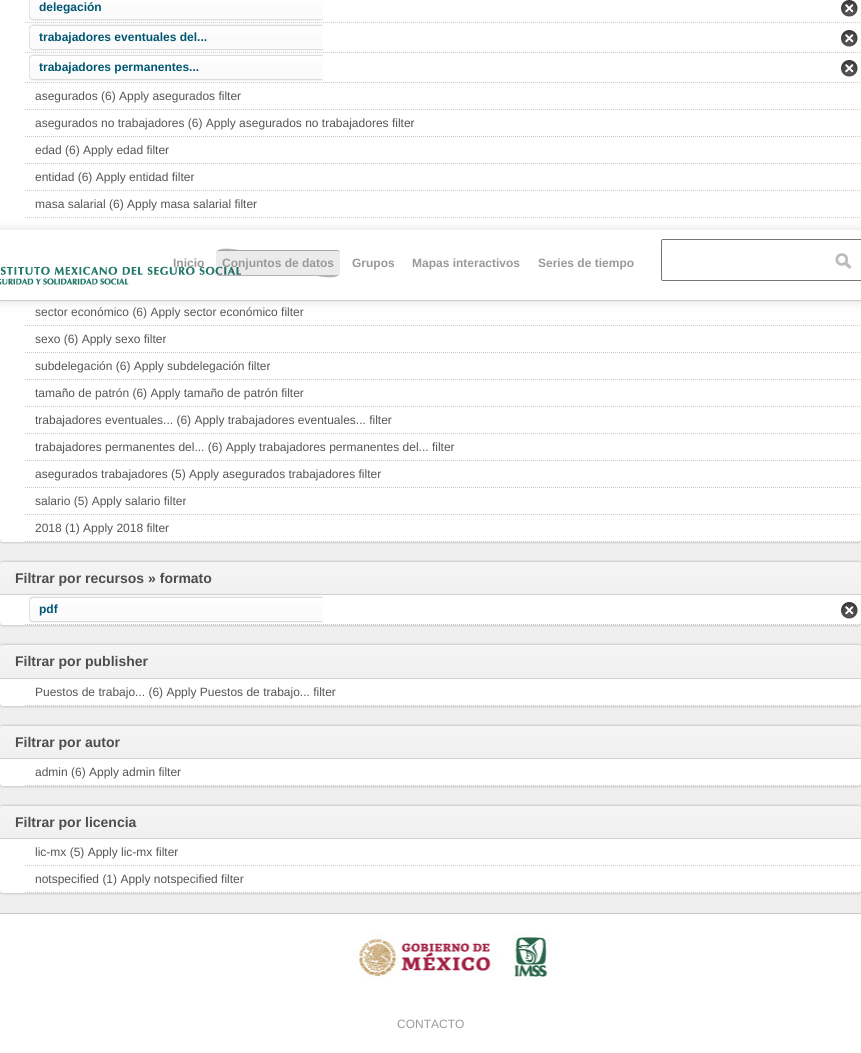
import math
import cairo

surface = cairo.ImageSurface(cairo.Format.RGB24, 861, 1053)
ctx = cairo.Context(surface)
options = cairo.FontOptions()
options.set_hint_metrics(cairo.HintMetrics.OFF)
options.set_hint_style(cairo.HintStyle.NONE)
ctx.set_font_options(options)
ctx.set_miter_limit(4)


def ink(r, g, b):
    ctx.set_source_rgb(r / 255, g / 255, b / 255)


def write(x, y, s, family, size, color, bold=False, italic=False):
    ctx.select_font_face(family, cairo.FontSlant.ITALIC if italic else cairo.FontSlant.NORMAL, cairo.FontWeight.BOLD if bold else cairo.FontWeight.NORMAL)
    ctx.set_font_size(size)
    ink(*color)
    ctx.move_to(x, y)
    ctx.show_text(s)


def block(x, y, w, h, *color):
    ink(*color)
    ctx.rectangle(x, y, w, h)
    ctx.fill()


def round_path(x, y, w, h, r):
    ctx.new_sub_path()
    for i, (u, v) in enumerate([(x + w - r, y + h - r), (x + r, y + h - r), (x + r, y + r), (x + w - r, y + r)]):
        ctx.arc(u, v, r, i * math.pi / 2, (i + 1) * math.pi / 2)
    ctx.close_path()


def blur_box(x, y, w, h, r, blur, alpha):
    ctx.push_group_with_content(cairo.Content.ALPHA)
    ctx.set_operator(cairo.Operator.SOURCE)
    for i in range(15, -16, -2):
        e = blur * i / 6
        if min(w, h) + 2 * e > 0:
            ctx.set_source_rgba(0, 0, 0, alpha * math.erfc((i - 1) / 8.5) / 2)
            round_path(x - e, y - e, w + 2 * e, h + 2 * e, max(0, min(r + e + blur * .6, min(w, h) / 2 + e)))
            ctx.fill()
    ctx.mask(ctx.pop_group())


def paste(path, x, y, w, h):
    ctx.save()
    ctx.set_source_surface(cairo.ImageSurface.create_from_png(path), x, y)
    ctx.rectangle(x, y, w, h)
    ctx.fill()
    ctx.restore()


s1 = dict(family="Liberation Sans", size=12, color=(0, 87, 114), bold=True)
s2 = dict(family="Liberation Sans", size=12, color=(85, 85, 85))
s3 = dict(family="Liberation Sans", size=14, color=(77, 77, 77), bold=True)
s4 = dict(family="Liberation Sans", size=12, color=(153, 153, 153), bold=True)
s5 = dict(family="Liberation Sans", size=12, color=(153, 153, 153))

ink(239, 239, 239)
ctx.paint()
ink(0, 0, 0)
blur_box(0, -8, 861, 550, 3, 1.5, 0.3)
ink(255, 255, 255)
round_path(0, -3, 861, 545, 3)
ctx.fill()
ctx.new_path()
ctx.move_to(25, 22.5)
ctx.line_to(861, 22.5)
ink(204, 204, 204)
ctx.set_line_width(1)
ctx.set_dash([1, 1])
ctx.stroke()
paste("pic1.png", 29, 0, 294, 21)
write(39, 11, "delegación", **s1)
paste("pic2.png", 841, 0, 17, 17)
ctx.new_path()
ctx.move_to(25, 52.5)
ctx.line_to(861, 52.5)
ink(204, 204, 204)
ctx.stroke()
paste("pic3.png", 29, 24, 294, 27)
write(39, 41, "trabajadores eventuales del...", **s1)
paste("pic2.png", 841, 30, 17, 17)
ctx.new_path()
ctx.move_to(25, 82.5)
ctx.line_to(861, 82.5)
ink(204, 204, 204)
ctx.stroke()
paste("pic3.png", 29, 54, 294, 27)
write(39, 71, "trabajadores permanentes...", **s1)
paste("pic2.png", 841, 60, 17, 17)
ctx.new_path()
ctx.move_to(25, 109.5)
ctx.line_to(861, 109.5)
ink(204, 204, 204)
ctx.stroke()
write(35, 100, "asegurados (6) Apply asegurados filter", **s2)
ctx.new_path()
ctx.move_to(25, 136.5)
ctx.line_to(861, 136.5)
ink(204, 204, 204)
ctx.stroke()
write(35, 127, "asegurados no trabajadores (6) Apply asegurados no trabajadores filter", **s2)
ctx.new_path()
ctx.move_to(25, 163.5)
ctx.line_to(861, 163.5)
ink(204, 204, 204)
ctx.stroke()
write(35, 154, "edad (6) Apply edad filter", **s2)
ctx.new_path()
ctx.move_to(25, 190.5)
ctx.line_to(861, 190.5)
ink(204, 204, 204)
ctx.stroke()
write(35, 181, "entidad (6) Apply entidad filter", **s2)
ctx.new_path()
ctx.move_to(25, 217.5)
ctx.line_to(861, 217.5)
ink(204, 204, 204)
ctx.stroke()
write(35, 208, "masa salarial (6) Apply masa salarial filter", **s2)
ctx.new_path()
ctx.move_to(25, 325.5)
ctx.line_to(861, 325.5)
ink(204, 204, 204)
ctx.stroke()
write(35, 316, "sector económico (6) Apply sector económico filter", **s2)
ctx.new_path()
ctx.move_to(25, 352.5)
ctx.line_to(861, 352.5)
ink(204, 204, 204)
ctx.stroke()
write(35, 343, "sexo (6) Apply sexo filter", **s2)
ctx.new_path()
ctx.move_to(25, 379.5)
ctx.line_to(861, 379.5)
ink(204, 204, 204)
ctx.stroke()
write(35, 370, "subdelegación (6) Apply subdelegación filter", **s2)
ctx.new_path()
ctx.move_to(25, 406.5)
ctx.line_to(861, 406.5)
ink(204, 204, 204)
ctx.stroke()
write(35, 397, "tamaño de patrón (6) Apply tamaño de patrón filter", **s2)
ctx.new_path()
ctx.move_to(25, 433.5)
ctx.line_to(861, 433.5)
ink(204, 204, 204)
ctx.stroke()
write(35, 424, "trabajadores eventuales... (6) Apply trabajadores eventuales... filter", **s2)
ctx.new_path()
ctx.move_to(25, 460.5)
ctx.line_to(861, 460.5)
ink(204, 204, 204)
ctx.stroke()
write(35, 451, "trabajadores permanentes del... (6) Apply trabajadores permanentes del... filter", **s2)
ctx.new_path()
ctx.move_to(25, 487.5)
ctx.line_to(861, 487.5)
ink(204, 204, 204)
ctx.stroke()
write(35, 478, "asegurados trabajadores (5) Apply asegurados trabajadores filter", **s2)
ctx.new_path()
ctx.move_to(25, 514.5)
ctx.line_to(861, 514.5)
ink(204, 204, 204)
ctx.stroke()
write(35, 505, "salario (5) Apply salario filter", **s2)
ctx.new_path()
ctx.move_to(25, 541.5)
ctx.line_to(861, 541.5)
ink(204, 204, 204)
ctx.stroke()
write(35, 532, "2018 (1) Apply 2018 filter", **s2)
ink(0, 0, 0)
blur_box(0, 562, 861, 63, 3, 1.5, 0.3)
ink(255, 255, 255)
round_path(0, 562, 861, 63, 3)
ctx.fill()
gradient = cairo.LinearGradient(431, 562, 431, 594)
gradient.add_color_stop_rgba(0, 0.961, 0.961, 0.961, 1)
gradient.add_color_stop_rgba(1, 0.941, 0.941, 0.941, 1)
ctx.set_source(gradient)
ctx.new_path()
ctx.move_to(3, 562)
ctx.line_to(858, 562)
ctx.curve_to(859.5, 562, 861, 563.5, 861, 565)
ctx.line_to(861, 594)
ctx.line_to(0, 594)
ctx.line_to(0, 565)
ctx.curve_to(0, 563.5, 1.5, 562, 3, 562)
ctx.close_path()
ctx.fill()
block(0, 594, 861, 1, 208, 208, 208)
write(15, 583, "Filtrar por recursos » formato", **s3)
ctx.new_path()
ctx.move_to(25, 624.5)
ctx.line_to(861, 624.5)
ink(204, 204, 204)
ctx.stroke()
paste("pic3.png", 29, 596, 294, 27)
write(39, 613, "pdf", **s1)
paste("pic2.png", 841, 602, 17, 17)
ink(0, 0, 0)
blur_box(0, 645, 861, 61, 3, 1.5, 0.3)
ink(255, 255, 255)
round_path(0, 645, 861, 61, 3)
ctx.fill()
gradient = cairo.LinearGradient(431, 645, 431, 678)
gradient.add_color_stop_rgba(0, 0.961, 0.961, 0.961, 1)
gradient.add_color_stop_rgba(1, 0.941, 0.941, 0.941, 1)
ctx.set_source(gradient)
ctx.new_path()
ctx.move_to(3, 645)
ctx.line_to(858, 645)
ctx.curve_to(859.5, 645, 861, 646.5, 861, 648)
ctx.line_to(861, 678)
ctx.line_to(0, 678)
ctx.line_to(0, 648)
ctx.curve_to(0, 646.5, 1.5, 645, 3, 645)
ctx.close_path()
ctx.fill()
block(0, 678, 861, 1, 208, 208, 208)
write(15, 666, "Filtrar por publisher", **s3)
ctx.new_path()
ctx.move_to(25, 705.5)
ctx.line_to(861, 705.5)
ink(204, 204, 204)
ctx.stroke()
write(35, 696, "Puestos de trabajo... (6) Apply Puestos de trabajo... filter", **s2)
ink(0, 0, 0)
blur_box(0, 726, 861, 60, 3, 1.5, 0.3)
ink(255, 255, 255)
round_path(0, 726, 861, 60, 3)
ctx.fill()
gradient = cairo.LinearGradient(431, 726, 431, 758)
gradient.add_color_stop_rgba(0, 0.961, 0.961, 0.961, 1)
gradient.add_color_stop_rgba(1, 0.941, 0.941, 0.941, 1)
ctx.set_source(gradient)
ctx.new_path()
ctx.move_to(3, 726)
ctx.line_to(858, 726)
ctx.curve_to(859.5, 726, 861, 727.5, 861, 729)
ctx.line_to(861, 758)
ctx.line_to(0, 758)
ctx.line_to(0, 729)
ctx.curve_to(0, 727.5, 1.5, 726, 3, 726)
ctx.close_path()
ctx.fill()
block(0, 758, 861, 1, 208, 208, 208)
write(15, 747, "Filtrar por autor", **s3)
ctx.new_path()
ctx.move_to(25, 785.5)
ctx.line_to(861, 785.5)
ink(204, 204, 204)
ctx.stroke()
write(35, 776, "admin (6) Apply admin filter", **s2)
ink(0, 0, 0)
blur_box(0, 806, 861, 87, 3, 1.5, 0.3)
ink(255, 255, 255)
round_path(0, 806, 861, 87, 3)
ctx.fill()
gradient = cairo.LinearGradient(431, 806, 431, 838)
gradient.add_color_stop_rgba(0, 0.961, 0.961, 0.961, 1)
gradient.add_color_stop_rgba(1, 0.941, 0.941, 0.941, 1)
ctx.set_source(gradient)
ctx.new_path()
ctx.move_to(3, 806)
ctx.line_to(858, 806)
ctx.curve_to(859.5, 806, 861, 807.5, 861, 809)
ctx.line_to(861, 838)
ctx.line_to(0, 838)
ctx.line_to(0, 809)
ctx.curve_to(0, 807.5, 1.5, 806, 3, 806)
ctx.close_path()
ctx.fill()
block(0, 838, 861, 1, 208, 208, 208)
write(15, 827, "Filtrar por licencia", **s3)
ctx.new_path()
ctx.move_to(25, 865.5)
ctx.line_to(861, 865.5)
ink(204, 204, 204)
ctx.stroke()
write(35, 856, "lic-mx (5) Apply lic-mx filter", **s2)
ctx.new_path()
ctx.move_to(25, 892.5)
ctx.line_to(861, 892.5)
ink(204, 204, 204)
ctx.stroke()
write(35, 883, "notspecified (1) Apply notspecified filter", **s2)
ink(221, 221, 221)
blur_box(0, 230, 861, 71, 0, 5, 1)
block(0, 230, 861, 70, 255, 255, 255)
block(0, 300, 861, 1, 204, 204, 204)
paste("pic5.png", 0, 266, 241, 19)
write(173, 267, "Inicio", **s4)
ink(179, 179, 179)
ctx.new_path()
ctx.move_to(216, 272)
ctx.curve_to(216, 274, 217, 276, 219, 276)
ctx.line_to(317, 276)
ctx.curve_to(318, 276, 340, 281, 340, 272)
ctx.curve_to(340, 274, 339, 275, 337, 275)
ctx.line_to(219, 275)
ctx.curve_to(217, 275, 216, 274, 216, 272)
ctx.close_path()
ctx.fill()
ctx.set_source_rgba(0, 0, 0, 0.08)
round_path(216, 250, 124, 25, 3)
ctx.fill()
ctx.set_source_rgba(0, 0, 0, 0.3)
ctx.new_path()
ctx.move_to(219, 251)
ctx.line_to(337, 251)
ctx.curve_to(339, 251, 340, 252, 340, 254)
ctx.curve_to(340, 252, 339, 250, 337, 250)
ctx.line_to(239, 250)
ctx.curve_to(238, 250, 216, 245, 216, 254)
ctx.curve_to(216, 252, 217, 251, 219, 251)
ctx.close_path()
ctx.fill()
write(222, 267, "Conjuntos de datos", **s4)
write(352, 267, "Grupos", **s4)
write(412, 267, "Mapas interactivos", **s4)
write(538, 267, "Series de tiempo", **s4)
round_path(661.5, 239.5, 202, 41, 1.5)
ink(118, 118, 118)
ctx.set_dash([])
ctx.stroke()
paste("pic4.png", 835, 253, 17, 16)
block(0, 914, 861, 139, 255, 255, 255)
block(0, 913, 861, 1, 201, 201, 201)
paste("pic6.png", 352, 933, 201, 48)
write(397, 1028, "CONTACTO", **s5)
surface.write_to_png("screenshot.png")
